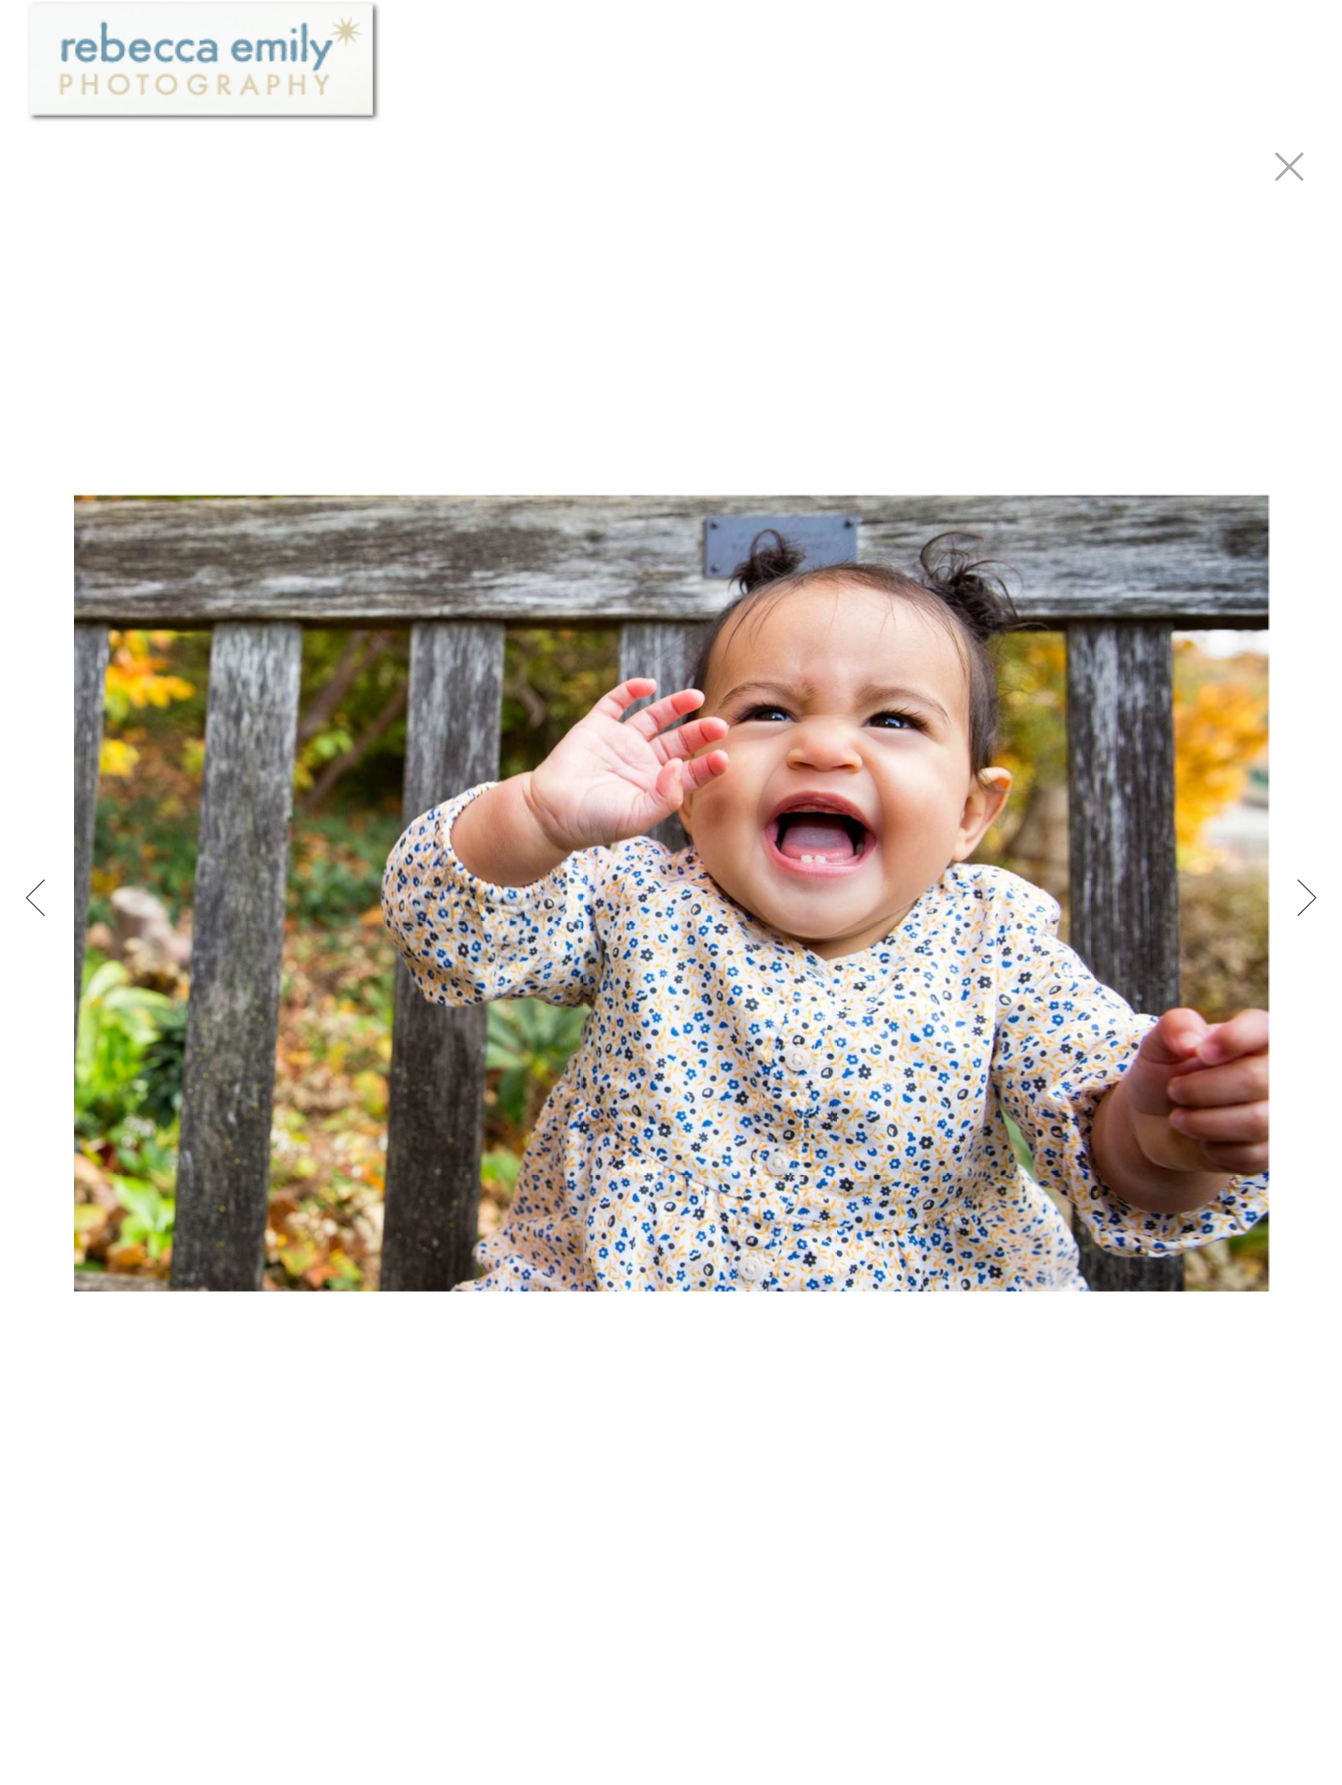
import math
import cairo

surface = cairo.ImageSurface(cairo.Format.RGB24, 1342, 1785)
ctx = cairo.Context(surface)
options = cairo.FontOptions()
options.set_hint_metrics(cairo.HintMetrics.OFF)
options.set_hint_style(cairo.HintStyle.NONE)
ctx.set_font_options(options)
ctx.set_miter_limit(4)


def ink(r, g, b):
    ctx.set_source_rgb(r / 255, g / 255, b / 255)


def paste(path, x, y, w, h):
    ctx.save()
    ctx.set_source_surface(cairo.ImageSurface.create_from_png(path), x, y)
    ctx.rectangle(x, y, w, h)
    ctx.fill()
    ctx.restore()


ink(255, 255, 255)
ctx.paint()
paste("pic1.png", 27, 1, 353, 121)
paste("pic2.png", 1275, 152, 29, 29)
paste("pic3.png", 74, 494, 1196, 798)
paste("pic4.png", 25, 879, 20, 38)
paste("pic5.png", 1297, 879, 20, 38)
surface.write_to_png("screenshot.png")
